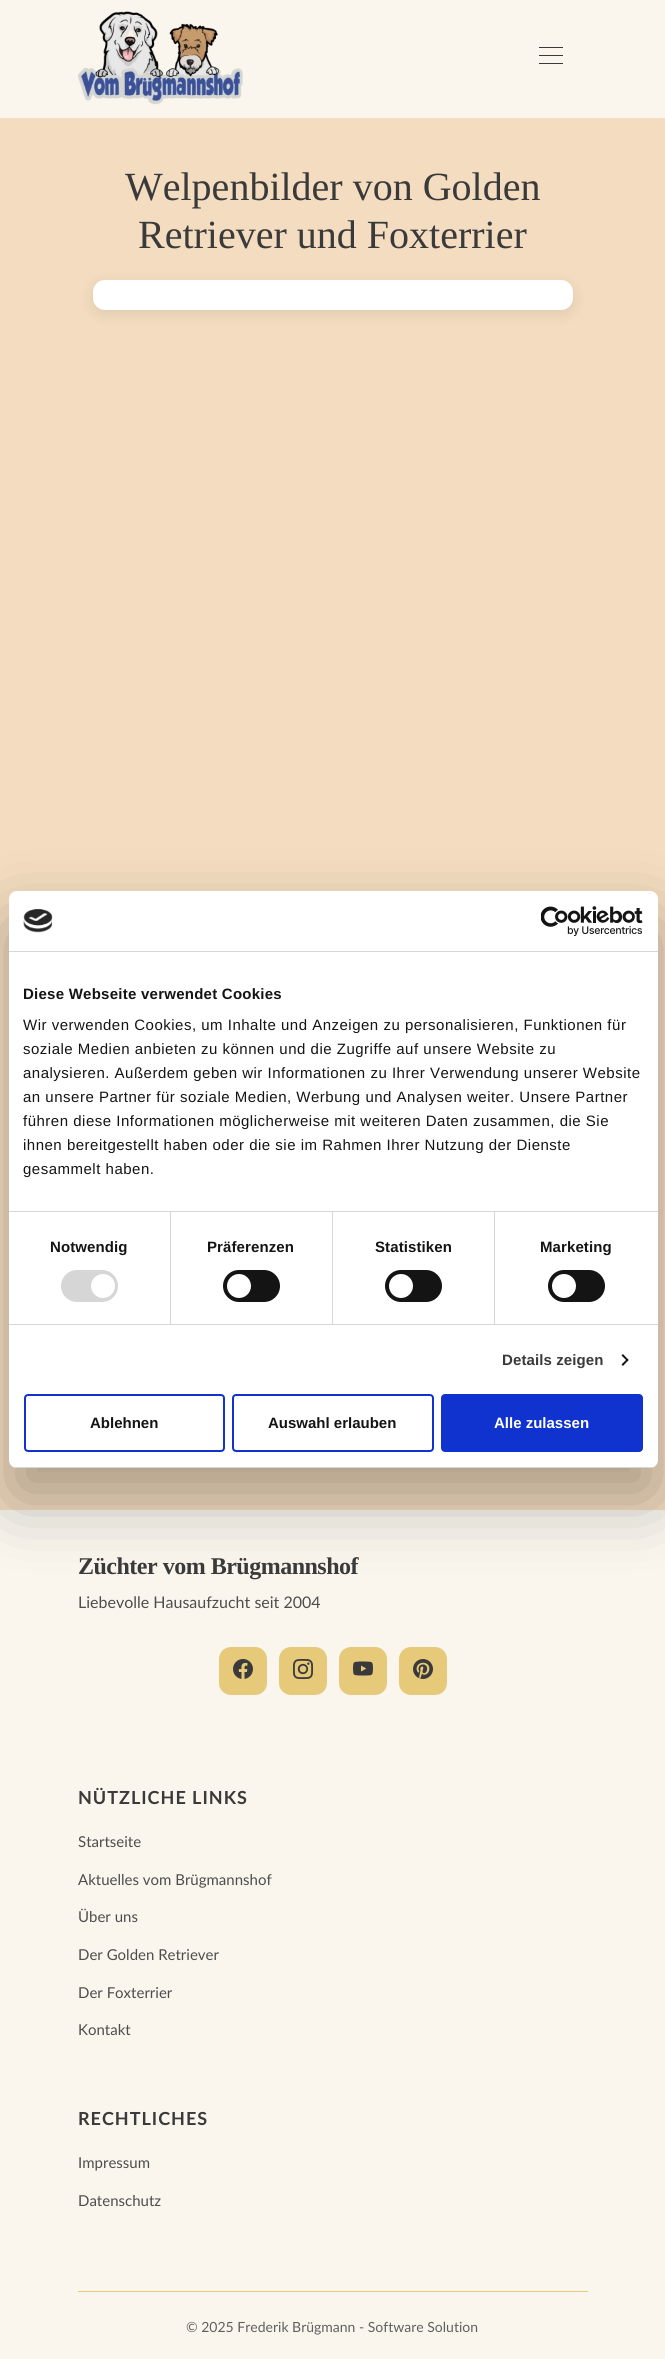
import math
import cairo

surface = cairo.ImageSurface(cairo.Format.RGB24, 665, 2359)
ctx = cairo.Context(surface)
options = cairo.FontOptions()
options.set_hint_metrics(cairo.HintMetrics.OFF)
options.set_hint_style(cairo.HintStyle.NONE)
ctx.set_font_options(options)
ctx.set_miter_limit(4)


def ink(r, g, b):
    ctx.set_source_rgb(r / 255, g / 255, b / 255)


def write(x, y, s, family, size, color, bold=False, italic=False):
    ctx.select_font_face(family, cairo.FontSlant.ITALIC if italic else cairo.FontSlant.NORMAL, cairo.FontWeight.BOLD if bold else cairo.FontWeight.NORMAL)
    ctx.set_font_size(size)
    ink(*color)
    ctx.move_to(x, y)
    ctx.show_text(s)


def write_spaced(x, y, s, letter, word):
    ctx.move_to(x, y)
    for ch in s:
        ctx.show_text(ch)
        ctx.rel_move_to(letter + word * (ch == ' '), 0)


def block(x, y, w, h, *color):
    ink(*color)
    ctx.rectangle(x, y, w, h)
    ctx.fill()


def round_path(x, y, w, h, r):
    ctx.new_sub_path()
    for i, (u, v) in enumerate([(x + w - r, y + h - r), (x + r, y + h - r), (x + r, y + r), (x + w - r, y + r)]):
        ctx.arc(u, v, r, i * math.pi / 2, (i + 1) * math.pi / 2)
    ctx.close_path()


def blur_box(x, y, w, h, r, blur, alpha):
    ctx.push_group_with_content(cairo.Content.ALPHA)
    ctx.set_operator(cairo.Operator.SOURCE)
    for i in range(15, -16, -2):
        e = blur * i / 6
        if min(w, h) + 2 * e > 0:
            ctx.set_source_rgba(0, 0, 0, alpha * math.erfc((i - 1) / 8.5) / 2)
            round_path(x - e, y - e, w + 2 * e, h + 2 * e, max(0, min(r + e + blur * .6, min(w, h) / 2 + e)))
            ctx.fill()
    ctx.mask(ctx.pop_group())


def paste(path, x, y, w, h):
    ctx.save()
    ctx.set_source_surface(cairo.ImageSurface.create_from_png(path), x, y)
    ctx.rectangle(x, y, w, h)
    ctx.fill()
    ctx.restore()


s1 = dict(family="Liberation Serif", size=40, color=(58, 58, 58))
s2 = dict(family="Lato", size=16, color=(77, 77, 76))
s3 = dict(family="Lato", size=15, color=(77, 77, 76))
s4 = dict(family="Lato", size=14, color=(96, 96, 94))
s5 = dict(family="Liberation Sans", size=15, color=(20, 20, 20), bold=True)
s6 = dict(family="Liberation Sans", size=15, color=(255, 255, 255), bold=True)

ink(250, 246, 238)
ctx.paint()
paste("pic1.png", 78, 11, 165, 94)
block(539, 63, 24, 1, 58, 58, 58)
block(539, 47, 24, 1, 58, 58, 58)
block(539, 55, 24, 1, 58, 58, 58)
block(0, 118, 665, 1392, 243, 220, 191)
write(125, 200, "Welpenbilder von Golden", **s1)
write(138, 248, "Retriever und Foxterrier", **s1)
ink(0, 0, 0)
blur_box(93, 284, 480, 30, 12, 8, 0.08)
ink(255, 255, 255)
round_path(93, 280, 480, 30, 12)
ctx.fill()
ctx.select_font_face("Liberation Serif", cairo.FontSlant.NORMAL, cairo.FontWeight.BOLD)
ctx.set_font_size(24)
ink(58, 58, 58)
write_spaced(78, 1574, "Züchter vom Brügmannshof", -0.5, 0)
write(78, 1608, "Liebevolle Hausaufzucht seit 2004", **s2)
ink(231, 201, 122)
round_path(220, 1648, 46, 46, 11)
ctx.fill_preserve()
ctx.stroke()
paste("pic2.png", 233, 1659, 20, 20)
round_path(280, 1648, 46, 46, 11)
ctx.fill_preserve()
ctx.stroke()
paste("pic3.png", 293, 1659, 20, 20)
round_path(340, 1648, 46, 46, 11)
ctx.fill_preserve()
ctx.stroke()
paste("pic4.png", 353, 1661, 20, 15)
round_path(400, 1648, 46, 46, 11)
ctx.fill_preserve()
ctx.stroke()
paste("pic5.png", 413, 1659, 20, 20)
ctx.select_font_face("Lato", cairo.FontSlant.NORMAL, cairo.FontWeight.BOLD)
ctx.set_font_size(18)
ink(58, 58, 58)
write_spaced(78, 1804, "NÜTZLICHE LINKS", 1, 0)
write(78, 1847, "Startseite", **s3)
write(78, 1885, "Aktuelles vom Brügmannshof", **s3)
write(78, 1922, "Über uns", **s3)
write(78, 1960, "Der Golden Retriever", **s3)
write(78, 1998, "Der Foxterrier", **s3)
write(78, 2035, "Kontakt", **s3)
ctx.select_font_face("Lato", cairo.FontSlant.NORMAL, cairo.FontWeight.BOLD)
ctx.set_font_size(18)
ink(58, 58, 58)
write_spaced(78, 2125, "RECHTLICHES", 1, 0)
write(78, 2168, "Impressum", **s3)
write(78, 2206, "Datenschutz", **s3)
block(78, 2291, 510, 1, 231, 201, 122)
write(186, 2332, "© 2025 Frederik Brügmann - Software Solution", **s4)
ink(0, 0, 0)
blur_box(9, 923, 649, 577, 8, 34, 0.3)
ink(255, 255, 255)
round_path(9, 891, 649, 577, 8)
ctx.fill()
block(9, 951, 649, 1, 214, 214, 214)
paste("pic6.png", 23, 909, 30, 24)
paste("pic7.png", 541, 906, 102, 30)
block(9, 1211, 649, 1, 214, 214, 214)
ctx.select_font_face("Liberation Sans", cairo.FontSlant.NORMAL, cairo.FontWeight.BOLD)
ctx.set_font_size(15)
ink(20, 20, 20)
write_spaced(23, 999, "Diese Webseite verwendet Cookies", 0.25, 0)
ctx.select_font_face("Liberation Sans")
write_spaced(23, 1030, "Wir verwenden Cookies, um Inhalte und Anzeigen zu personalisieren, Funktionen für", 0.5, 0)
write_spaced(23, 1054, "soziale Medien anbieten zu können und die Zugriffe auf unsere Website zu", 0.5, 0)
write_spaced(23, 1078, "analysieren. Außerdem geben wir Informationen zu Ihrer Verwendung unserer Website", 0.5, 0)
write_spaced(23, 1102, "an unsere Partner für soziale Medien, Werbung und Analysen weiter. Unsere Partner", 0.5, 0)
write_spaced(23, 1126, "führen diese Informationen möglicherweise mit weiteren Daten zusammen, die Sie", 0.5, 0)
write_spaced(23, 1150, "ihnen bereitgestellt haben oder die sie im Rahmen Ihrer Nutzung der Dienste", 0.5, 0)
write_spaced(23, 1174, "gesammelt haben.", 0.5, 0)
block(9, 1324, 649, 1, 214, 214, 214)
block(170, 1212, 1, 112, 214, 214, 214)
ctx.select_font_face("Liberation Sans", cairo.FontSlant.NORMAL, cairo.FontWeight.BOLD)
ink(20, 20, 20)
write_spaced(50, 1252, "Notwendig", 0.1, 0)
ink(214, 214, 214)
round_path(61, 1270, 57, 32, 16)
ctx.fill()
ink(255, 255, 255)
ctx.arc(103, 1286, 12, 0, 2 * math.pi)
ctx.fill()
block(332, 1212, 1, 112, 214, 214, 214)
ink(20, 20, 20)
write_spaced(207, 1252, "Präferenzen", 0.1, 0)
round_path(223, 1270, 57, 32, 16)
ctx.fill()
ink(255, 255, 255)
ctx.arc(239, 1286, 12, 0, 2 * math.pi)
ctx.fill()
block(494, 1212, 1, 112, 214, 214, 214)
ink(20, 20, 20)
write_spaced(375, 1252, "Statistiken", 0.1, 0)
round_path(385, 1270, 57, 32, 16)
ctx.fill()
ink(255, 255, 255)
ctx.arc(401, 1286, 12, 0, 2 * math.pi)
ctx.fill()
ink(20, 20, 20)
write_spaced(540, 1252, "Marketing", 0.1, 0)
round_path(548, 1270, 57, 32, 16)
ctx.fill()
ink(255, 255, 255)
ctx.arc(564, 1286, 12, 0, 2 * math.pi)
ctx.fill()
ink(58, 58, 58)
write_spaced(502, 1365, "Details zeigen", 0.1, 0)
ink(20, 20, 20)
ctx.new_path()
ctx.move_to(623, 1354)
ctx.line_to(628.5, 1360)
ctx.line_to(627.5, 1361.5)
ctx.line_to(621.5, 1355.5)
ctx.close_path()
ctx.fill()
ctx.new_path()
ctx.move_to(627.5, 1358.5)
ctx.line_to(628.5, 1360)
ctx.line_to(623, 1366)
ctx.line_to(621.5, 1364.5)
ctx.close_path()
ctx.fill()
ctx.save()
round_path(9, 891, 649, 577, 8)
ctx.clip()
block(9, 1467, 649, 1, 214, 214, 214)
ctx.restore()
round_path(25, 1395, 199, 56, 3)
ink(16, 50, 207)
ctx.stroke()
write(90, 1428, "Ablehnen", **s5)
round_path(233, 1395, 200, 56, 3)
ink(16, 50, 207)
ctx.stroke()
write(268, 1428, "Auswahl erlauben", **s5)
ink(16, 50, 207)
round_path(442, 1395, 200, 56, 3)
ctx.fill_preserve()
ctx.stroke()
write(494, 1428, "Alle zulassen", **s6)
surface.write_to_png("screenshot.png")
